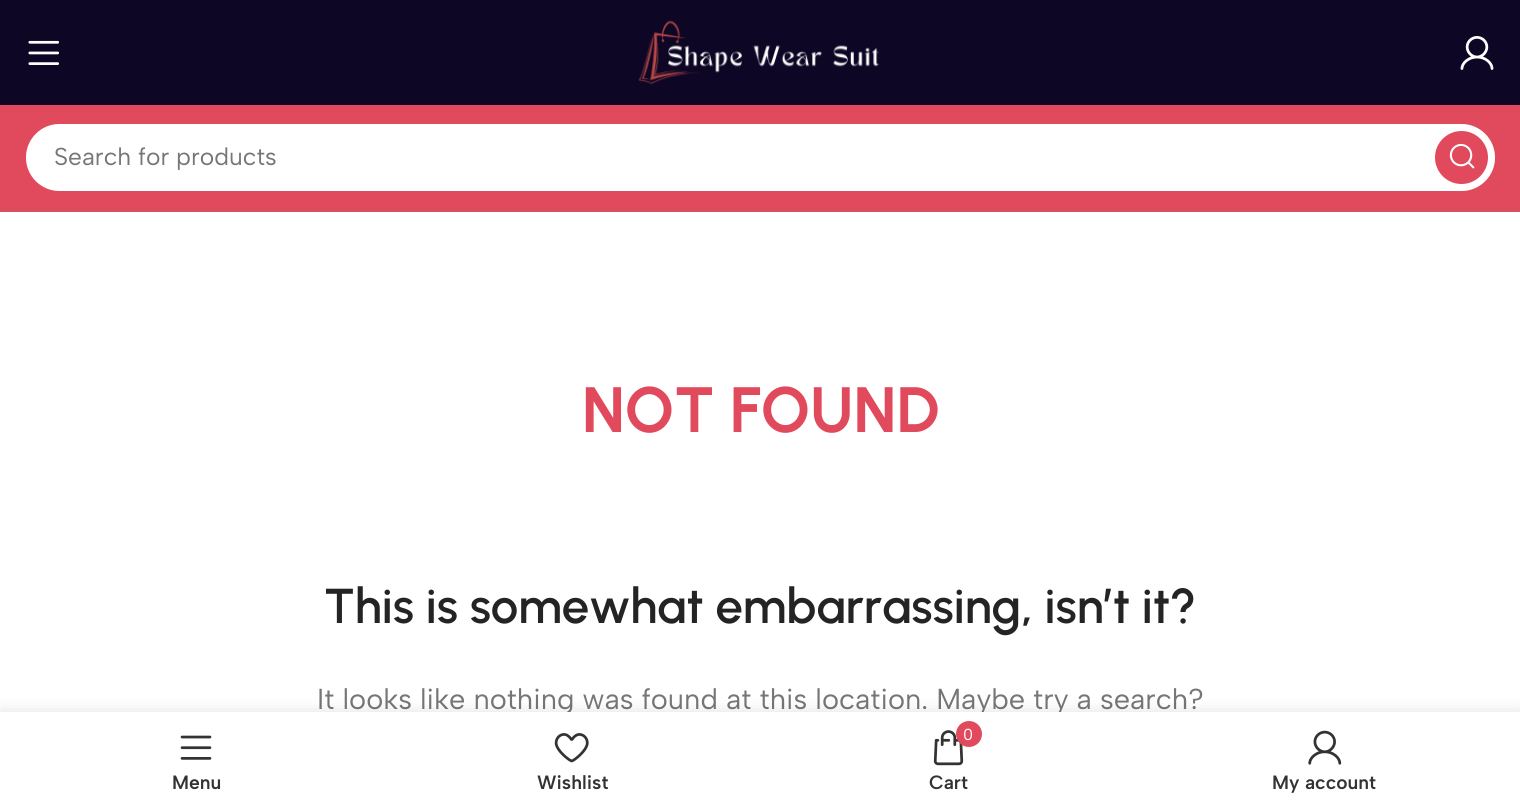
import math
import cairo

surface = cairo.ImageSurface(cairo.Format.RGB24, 1520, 807)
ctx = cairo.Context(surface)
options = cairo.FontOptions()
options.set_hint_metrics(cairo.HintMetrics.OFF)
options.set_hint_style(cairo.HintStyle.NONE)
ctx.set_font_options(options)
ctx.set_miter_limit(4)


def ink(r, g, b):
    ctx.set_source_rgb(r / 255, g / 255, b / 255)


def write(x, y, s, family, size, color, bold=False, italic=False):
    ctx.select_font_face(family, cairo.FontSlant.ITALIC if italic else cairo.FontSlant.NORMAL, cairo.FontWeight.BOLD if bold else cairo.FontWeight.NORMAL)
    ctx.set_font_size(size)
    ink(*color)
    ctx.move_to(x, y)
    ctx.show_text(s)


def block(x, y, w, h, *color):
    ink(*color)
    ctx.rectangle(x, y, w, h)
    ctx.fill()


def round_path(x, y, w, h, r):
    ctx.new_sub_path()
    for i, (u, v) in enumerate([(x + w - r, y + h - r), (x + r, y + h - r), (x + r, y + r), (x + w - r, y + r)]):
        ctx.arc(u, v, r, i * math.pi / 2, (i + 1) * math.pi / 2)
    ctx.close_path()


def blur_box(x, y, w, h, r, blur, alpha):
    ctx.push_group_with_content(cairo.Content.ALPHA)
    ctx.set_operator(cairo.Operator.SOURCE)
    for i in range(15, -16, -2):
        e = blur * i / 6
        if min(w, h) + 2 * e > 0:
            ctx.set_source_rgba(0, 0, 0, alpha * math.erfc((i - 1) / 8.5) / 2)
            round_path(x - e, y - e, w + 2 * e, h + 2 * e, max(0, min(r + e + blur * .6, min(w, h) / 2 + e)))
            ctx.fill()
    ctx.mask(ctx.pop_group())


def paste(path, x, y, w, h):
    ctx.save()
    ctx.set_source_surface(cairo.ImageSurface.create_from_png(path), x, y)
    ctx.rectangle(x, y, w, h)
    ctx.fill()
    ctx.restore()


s1 = dict(family="Albert Sans", size=24.5, color=(118, 118, 118))
s2 = dict(family="Urbanist", size=64, color=(225, 74, 92), bold=True)
s3 = dict(family="Urbanist SemiBold", size=49, color=(36, 36, 36))
s4 = dict(family="Albert Sans", size=28.9, color=(118, 118, 118))
s5 = dict(family="Albert Sans SemiBold", size=19.25, color=(51, 51, 51))
s6 = dict(family="Albert Sans", size=16, color=(255, 255, 255))

ink(255, 255, 255)
ctx.paint()
block(0, 0, 1520, 105, 13, 6, 37)
paste("pic1.png", 28, 40, 31, 25)
paste("pic2.png", 638, 20, 241, 65)
paste("pic3.png", 1460, 36, 34, 34)
block(0, 105, 1520, 105, 225, 74, 92)
block(0, 210, 1520, 2, 206, 85, 99)
ink(255, 255, 255)
round_path(26, 124, 1469, 67, 33.5)
ctx.fill()
round_path(27, 125, 1467, 65, 32.5)
ctx.set_source_rgba(1, 1, 1, 0.2)
ctx.stroke()
write(54, 165, "Search for products", **s1)
ink(225, 74, 92)
ctx.new_path()
ctx.arc(1461.5, 157.5, 26.5, 0, 2 * math.pi)
ctx.fill()
paste("pic4.png", 1449, 143, 26, 26)
write(582, 432, "NOT FOUND", **s2)
write(324, 623, "This is somewhat embarrassing, isn’t it?", **s3)
write(317, 709, "It looks like nothing was found at this location. Maybe try a search?", **s4)
ink(0, 0, 0)
blur_box(0, 712, 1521, 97, 0, 8, 0.12)
block(0, 712, 1520, 95, 255, 255, 255)
paste("pic5.png", 180, 735, 32, 25)
write(172, 789, "Menu", **s5)
paste("pic6.png", 554, 733, 35, 30)
write(537, 789, "Wishlist", **s5)
paste("pic7.png", 933, 730, 31, 36)
ink(225, 74, 92)
ctx.arc(969, 734, 13, 0, 2 * math.pi)
ctx.fill()
write(963, 740, "0", **s6)
write(929, 789, "Cart", **s5)
paste("pic8.png", 1308, 730, 34, 35)
write(1272, 789, "My account", **s5)
surface.write_to_png("screenshot.png")
